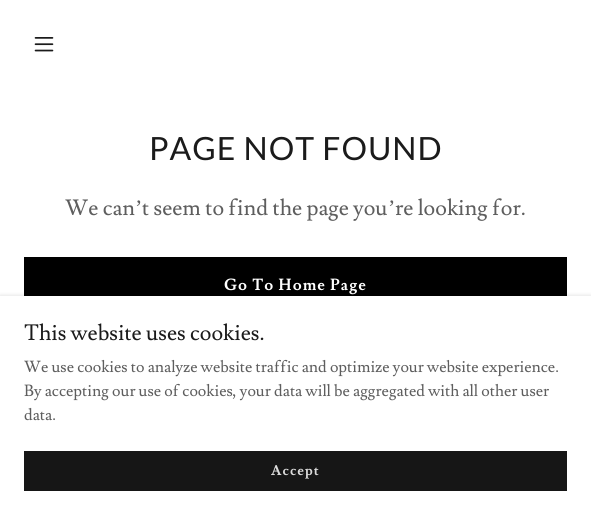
import math
import cairo

surface = cairo.ImageSurface(cairo.Format.RGB24, 591, 519)
ctx = cairo.Context(surface)
options = cairo.FontOptions()
options.set_hint_metrics(cairo.HintMetrics.OFF)
options.set_hint_style(cairo.HintStyle.NONE)
ctx.set_font_options(options)
ctx.set_miter_limit(4)


def ink(r, g, b):
    ctx.set_source_rgb(r / 255, g / 255, b / 255)


def write(x, y, s, family, size, color, bold=False, italic=False):
    ctx.select_font_face(family, cairo.FontSlant.ITALIC if italic else cairo.FontSlant.NORMAL, cairo.FontWeight.BOLD if bold else cairo.FontWeight.NORMAL)
    ctx.set_font_size(size)
    ink(*color)
    ctx.move_to(x, y)
    ctx.show_text(s)


def write_spaced(x, y, s, letter, word):
    ctx.move_to(x, y)
    for ch in s:
        ctx.show_text(ch)
        ctx.rel_move_to(letter + word * (ch == ' '), 0)


def block(x, y, w, h, *color):
    ink(*color)
    ctx.rectangle(x, y, w, h)
    ctx.fill()


def round_path(x, y, w, h, r):
    ctx.new_sub_path()
    for i, (u, v) in enumerate([(x + w - r, y + h - r), (x + r, y + h - r), (x + r, y + r), (x + w - r, y + r)]):
        ctx.arc(u, v, r, i * math.pi / 2, (i + 1) * math.pi / 2)
    ctx.close_path()


def blur_box(x, y, w, h, r, blur, alpha):
    ctx.push_group_with_content(cairo.Content.ALPHA)
    ctx.set_operator(cairo.Operator.SOURCE)
    for i in range(15, -16, -2):
        e = blur * i / 6
        if min(w, h) + 2 * e > 0:
            ctx.set_source_rgba(0, 0, 0, alpha * math.erfc((i - 1) / 8.5) / 2)
            round_path(x - e, y - e, w + 2 * e, h + 2 * e, max(0, min(r + e + blur * .6, min(w, h) / 2 + e)))
            ctx.fill()
    ctx.mask(ctx.pop_group())


def paste(path, x, y, w, h):
    ctx.save()
    ctx.set_source_surface(cairo.ImageSurface.create_from_png(path), x, y)
    ctx.rectangle(x, y, w, h)
    ctx.fill()
    ctx.restore()


s1 = dict(family="Lusitana", size=22, color=(94, 94, 94))
s2 = dict(family="Liberation Serif", size=22, color=(94, 94, 94))
s3 = dict(family="Lusitana", size=22, color=(27, 27, 27))
s4 = dict(family="Lusitana", size=16, color=(94, 94, 94))

ink(255, 255, 255)
ctx.paint()
paste("pic1.png", 34, 37, 20, 15)
ctx.select_font_face("Lato")
ctx.set_font_size(32)
ink(27, 27, 27)
write_spaced(149, 160, "PAGE NOT FOUND", 1, 0)
write(65, 215, "We can", **s1)
write(135, 215, "’", **s2)
write(142, 215, "t seem to find the page you", **s1)
write(388, 215, "’", **s2)
write(395, 215, "re looking for.", **s1)
block(24, 257, 543, 39, 0, 0, 0)
ctx.select_font_face("Lusitana", cairo.FontSlant.NORMAL, cairo.FontWeight.BOLD)
ctx.set_font_size(16)
ink(255, 255, 255)
write_spaced(224, 290, "Go To Home Page", 1, 0)
ink(0, 0, 0)
blur_box(0, 298, 591, 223, 0, 3, 0.3)
block(0, 296, 591, 223, 255, 255, 255)
write(24, 340, "This website uses cookies.", **s3)
write(24, 372, "We use cookies to analyze website traffic and optimize your website experience.", **s4)
write(24, 396, "By accepting our use of cookies, your data will be aggregated with all other user", **s4)
write(24, 420, "data.", **s4)
block(24, 451, 543, 40, 22, 22, 22)
ctx.select_font_face("Lusitana", cairo.FontSlant.NORMAL, cairo.FontWeight.BOLD)
ctx.set_font_size(14)
ink(219, 219, 219)
write_spaced(271, 475, "Accept", 1, 0)
surface.write_to_png("screenshot.png")
